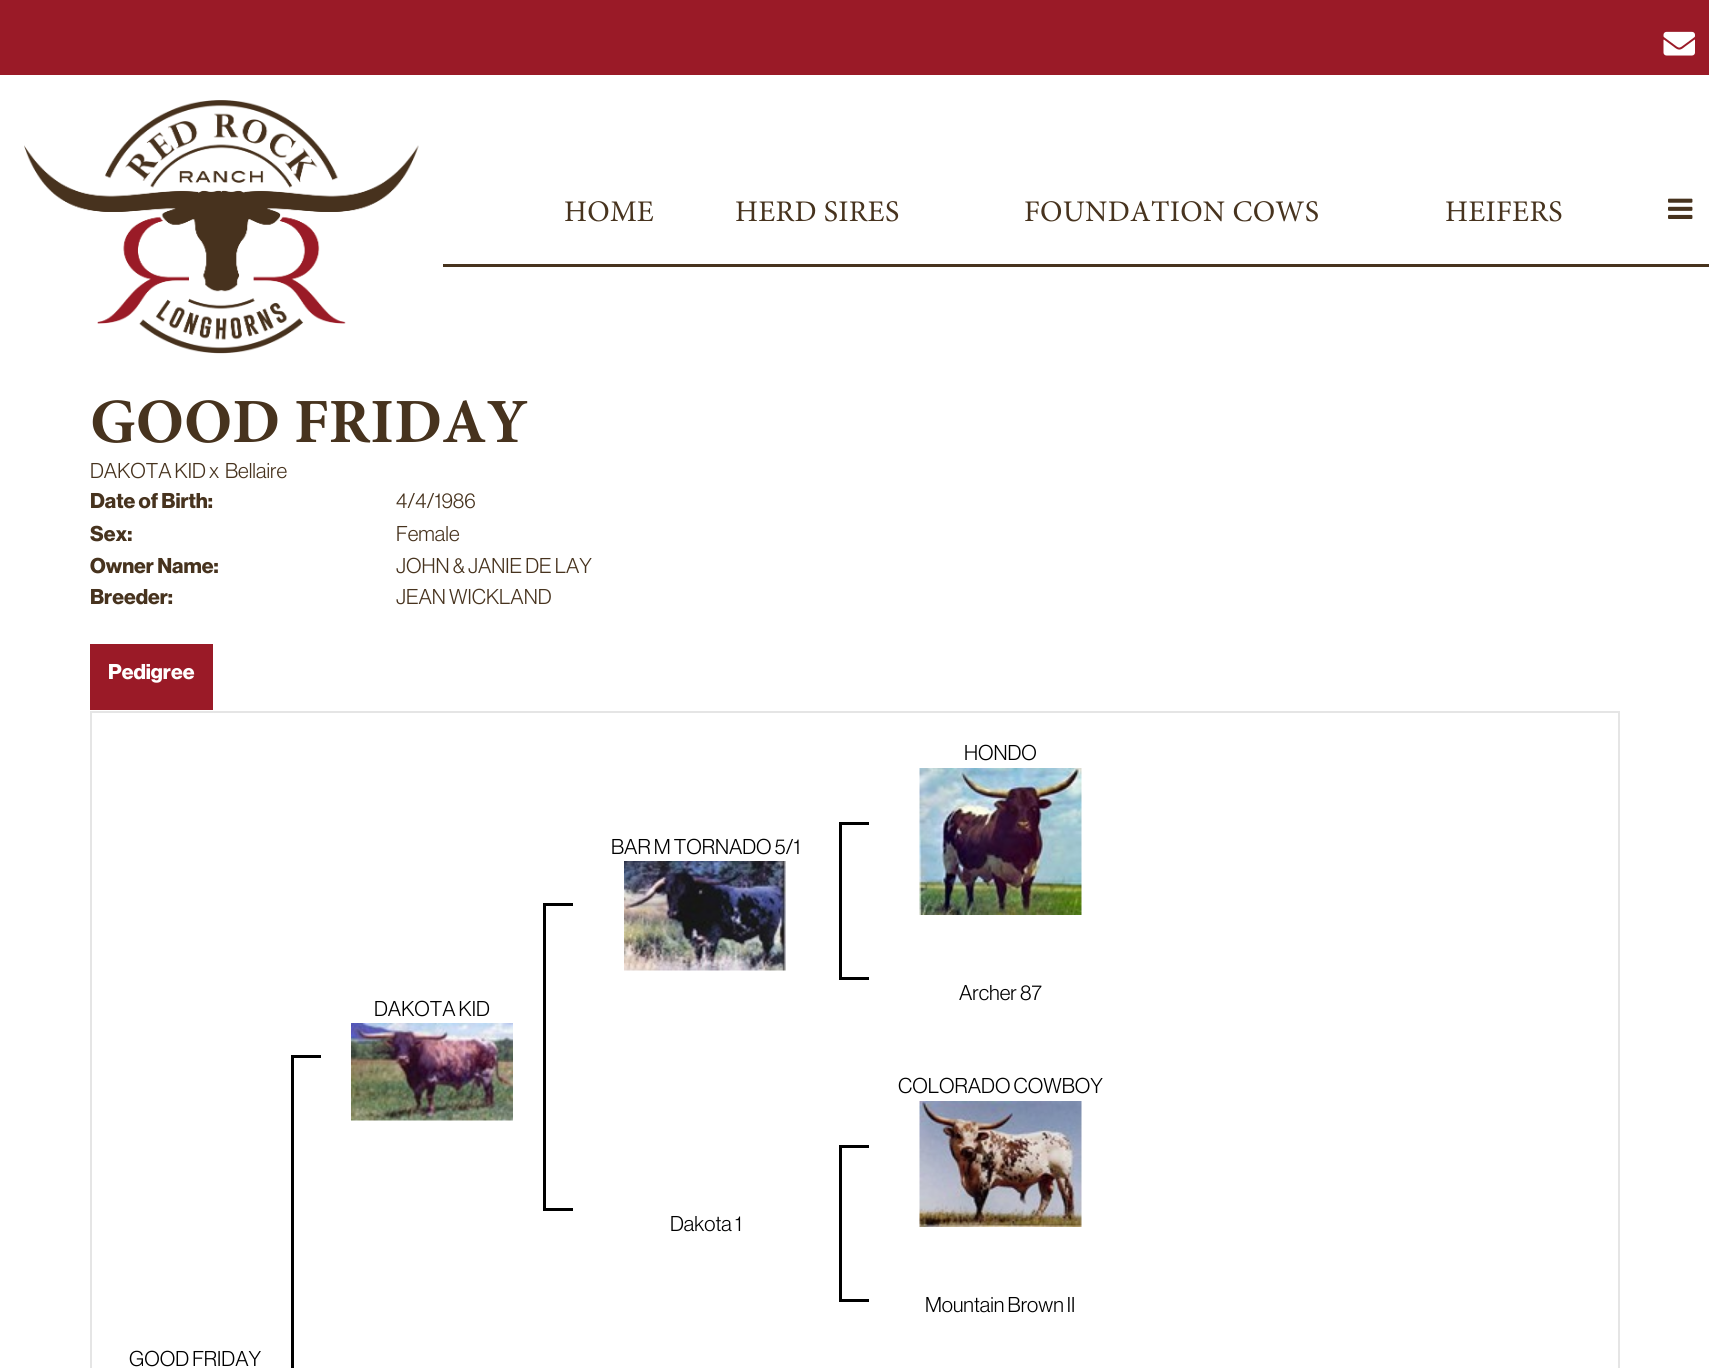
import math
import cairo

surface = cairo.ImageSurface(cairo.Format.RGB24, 1709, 1368)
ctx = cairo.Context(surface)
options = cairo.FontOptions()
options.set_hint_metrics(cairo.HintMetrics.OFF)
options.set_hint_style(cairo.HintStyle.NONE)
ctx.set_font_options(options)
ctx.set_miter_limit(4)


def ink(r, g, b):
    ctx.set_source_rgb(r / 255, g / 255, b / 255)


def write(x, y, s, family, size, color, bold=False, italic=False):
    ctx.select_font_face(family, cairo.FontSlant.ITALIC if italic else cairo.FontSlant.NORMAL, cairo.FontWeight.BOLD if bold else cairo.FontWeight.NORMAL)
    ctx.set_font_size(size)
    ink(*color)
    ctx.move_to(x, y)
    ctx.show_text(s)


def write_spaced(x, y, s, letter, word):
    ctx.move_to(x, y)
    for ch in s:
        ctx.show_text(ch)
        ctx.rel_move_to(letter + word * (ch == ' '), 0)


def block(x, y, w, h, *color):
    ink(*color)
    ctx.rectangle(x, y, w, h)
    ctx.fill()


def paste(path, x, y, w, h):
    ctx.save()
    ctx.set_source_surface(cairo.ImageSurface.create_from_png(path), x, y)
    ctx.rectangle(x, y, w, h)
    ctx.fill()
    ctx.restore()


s1 = dict(family="Minion", size=63, color=(71, 51, 30), bold=True)
s2 = dict(family="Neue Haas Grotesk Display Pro", size=21, color=(71, 51, 30))
s3 = dict(family="Neue Haas Grotesk Display Pro", size=21, color=(71, 51, 30), bold=True)
s4 = dict(family="Neue Haas Grotesk Display Pro", size=21, color=(255, 255, 255), bold=True)
s5 = dict(family="Neue Haas Grotesk Display Pro", size=21, color=(0, 0, 0))

ink(255, 255, 255)
ctx.paint()
block(0, 0, 1709, 75, 154, 26, 39)
paste("pic1.png", 1663, 31, 32, 25)
paste("pic2.png", 24, 100, 395, 254)
block(443, 264, 1266, 3, 71, 51, 30)
ctx.select_font_face("Minion")
ctx.set_font_size(30)
write_spaced(564, 221, "HOME", 0.25, 0)
write_spaced(735, 221, "HERD SIRES", 0.25, 0)
write_spaced(1024, 221, "FOUNDATION COWS", 0.25, 0)
write_spaced(1445, 221, "HEIFERS", 0.25, 0)
paste("pic3.png", 1668, 198, 25, 21)
write(90, 442, "GOOD FRIDAY", **s1)
write(90, 478, "DAKOTA KID x", **s2)
write(225, 478, "Bellaire", **s2)
write(90, 508, "Date of Birth:", **s3)
write(396, 508, "4/4/1986", **s2)
write(90, 541, "Sex:", **s3)
write(396, 541, "Female", **s2)
write(90, 573, "Owner Name:", **s3)
write(396, 573, "JOHN & JANIE DE LAY", **s2)
write(90, 604, "Breeder:", **s3)
write(396, 604, "JEAN WICKLAND", **s2)
block(90, 711, 1530, 2, 229, 229, 229)
block(90, 644, 123, 66, 154, 26, 39)
write(108, 679, "Pedigree", **s4)
ink(229, 229, 229)
ctx.new_path()
ctx.move_to(1620, 712)
ctx.line_to(1618, 712)
ctx.line_to(1618, 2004)
ctx.line_to(1619, 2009)
ctx.line_to(1620, 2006)
ctx.close_path()
ctx.fill()
ctx.new_path()
ctx.move_to(90, 712)
ctx.line_to(90, 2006)
ctx.line_to(91, 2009)
ctx.line_to(92, 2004)
ctx.line_to(92, 712)
ctx.close_path()
ctx.fill()
write(964, 760, "HONDO", **s5)
paste("pic4.png", 919, 768, 163, 147)
write(611, 854, "BAR M TORNADO 5/1", **s5)
paste("pic5.png", 624, 861, 162, 110)
block(839, 822, 30, 3, 0, 0, 0)
block(839, 977, 30, 3, 0, 0, 0)
block(839, 822, 3, 158, 0, 0, 0)
write(374, 1016, "DAKOTA KID", **s5)
paste("pic6.png", 351, 1023, 162, 98)
block(543, 903, 30, 3, 0, 0, 0)
block(543, 1208, 30, 3, 0, 0, 0)
block(543, 903, 3, 308, 0, 0, 0)
write(129, 1366, "GOOD FRIDAY", **s5)
block(291, 1055, 30, 3, 0, 0, 0)
block(291, 1055, 3, 313, 0, 0, 0)
write(959, 1000, "Archer 87", **s5)
write(898, 1093, "COLORADO COWBOY", **s5)
paste("pic7.png", 919, 1101, 163, 126)
write(670, 1231, "Dakota 1", **s5)
block(839, 1145, 30, 3, 0, 0, 0)
block(839, 1299, 30, 3, 0, 0, 0)
block(839, 1145, 3, 157, 0, 0, 0)
write(925, 1312, "Mountain Brown II", **s5)
surface.write_to_png("screenshot.png")
